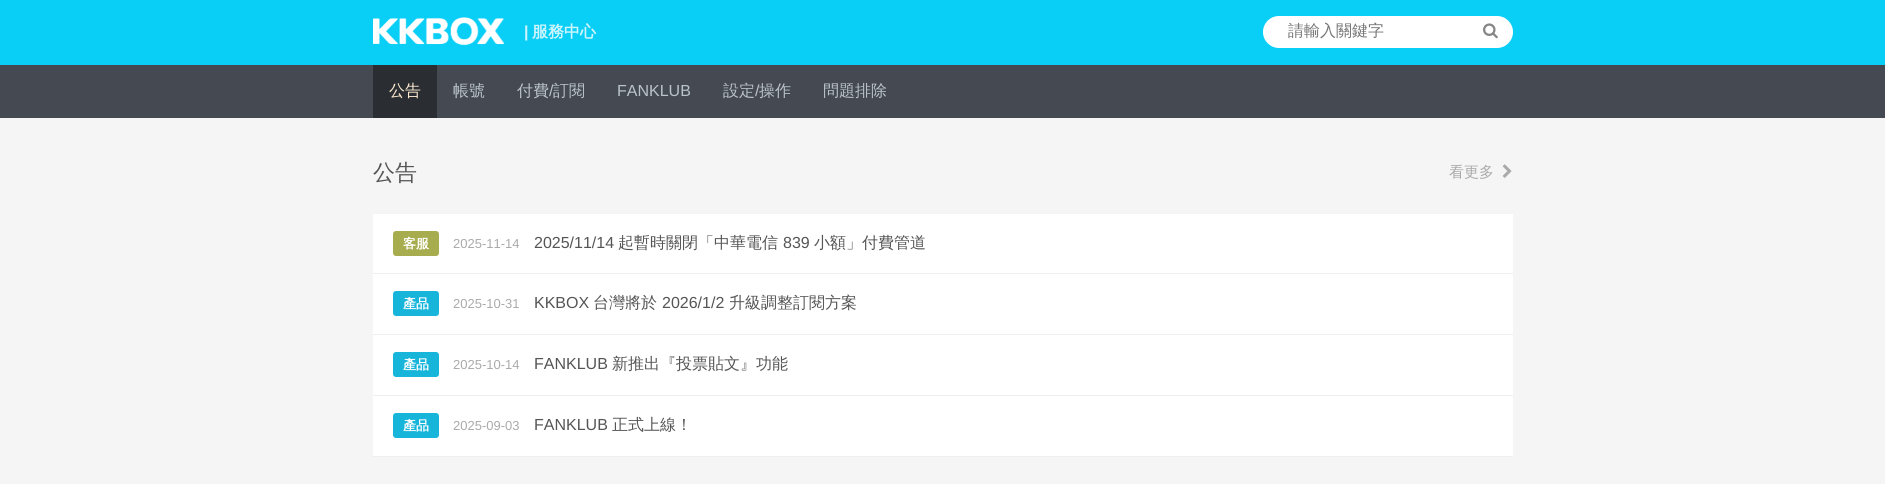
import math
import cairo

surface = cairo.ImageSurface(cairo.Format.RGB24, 1885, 484)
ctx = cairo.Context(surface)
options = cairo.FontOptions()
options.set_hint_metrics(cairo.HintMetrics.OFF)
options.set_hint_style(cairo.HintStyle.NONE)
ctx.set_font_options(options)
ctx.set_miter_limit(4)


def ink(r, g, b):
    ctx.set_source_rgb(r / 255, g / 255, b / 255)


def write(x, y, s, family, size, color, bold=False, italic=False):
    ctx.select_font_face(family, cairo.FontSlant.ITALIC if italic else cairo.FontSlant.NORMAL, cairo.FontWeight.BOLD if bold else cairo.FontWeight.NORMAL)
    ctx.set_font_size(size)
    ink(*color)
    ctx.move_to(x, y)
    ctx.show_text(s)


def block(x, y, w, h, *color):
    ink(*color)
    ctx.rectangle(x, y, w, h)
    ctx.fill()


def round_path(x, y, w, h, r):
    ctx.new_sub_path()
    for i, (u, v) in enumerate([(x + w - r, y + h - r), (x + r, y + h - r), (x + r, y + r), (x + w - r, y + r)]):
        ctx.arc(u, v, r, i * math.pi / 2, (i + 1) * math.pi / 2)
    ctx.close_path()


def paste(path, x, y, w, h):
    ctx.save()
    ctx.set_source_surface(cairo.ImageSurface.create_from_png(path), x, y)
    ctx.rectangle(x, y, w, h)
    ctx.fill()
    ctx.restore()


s1 = dict(family="Liberation Sans", size=16, color=(206, 245, 253), bold=True)
s2 = dict(family="WenQuanYi Zen Hei", size=16, color=(206, 245, 253), bold=True)
s3 = dict(family="WenQuanYi Zen Hei Medium", size=16, color=(117, 117, 117))
s4 = dict(family="WenQuanYi Zen Hei Medium", size=16, color=(253, 235, 207))
s5 = dict(family="WenQuanYi Zen Hei Medium", size=16, color=(187, 195, 202))
s6 = dict(family="Liberation Sans", size=16, color=(187, 195, 202))
s7 = dict(family="WenQuanYi Zen Hei Medium", size=22, color=(85, 85, 85))
s8 = dict(family="WenQuanYi Zen Hei Medium", size=15, color=(170, 170, 170))
s9 = dict(family="WenQuanYi Zen Hei", size=13, color=(255, 255, 255), bold=True)
s10 = dict(family="Liberation Sans", size=13, color=(170, 170, 170))
s11 = dict(family="Liberation Sans", size=16, color=(85, 85, 85))
s12 = dict(family="WenQuanYi Zen Hei Medium", size=16, color=(85, 85, 85))

ink(245, 245, 245)
ctx.paint()
block(0, 0, 1885, 65, 9, 206, 246)
paste("pic1.png", 373, 17, 131, 29)
write(524, 37, "|", **s1)
write(532, 37, "服務中心", **s2)
ink(255, 255, 255)
round_path(1263, 16, 250, 32, 16)
ctx.fill()
ctx.save()
ctx.rectangle(1288, 21, 175, 21)
ctx.clip()
write(1288, 36, "請輸入關鍵字", **s3)
ctx.restore()
paste("pic2.png", 1483, 23, 15, 16)
block(0, 65, 1885, 53, 69, 74, 82)
block(373, 65, 64, 53, 42, 46, 51)
write(389, 96, "公告", **s4)
write(453, 96, "帳號", **s5)
write(517, 96, "付費", **s5)
write(549, 96, "/", **s6)
write(553, 96, "訂閱", **s5)
write(617, 96, "FANKLUB", **s6)
write(723, 96, "設定", **s5)
write(755, 96, "/", **s6)
write(759, 96, "操作", **s5)
write(823, 96, "問題排除", **s5)
write(373, 180, "公告", **s7)
write(1449, 177, "看更多", **s8)
paste("pic3.png", 1502, 164, 10, 14)
block(373, 214, 1140, 59, 255, 255, 255)
block(373, 273, 1140, 1, 238, 238, 238)
ink(167, 173, 79)
round_path(393, 231, 46, 25, 3)
ctx.fill()
write(403, 248, "客服", **s9)
write(453, 248, "2025-11-14", **s10)
write(534, 248, "2025/11/14", **s11)
write(618, 248, "起暫時關閉「中華電信", **s12)
write(783, 248, "839", **s11)
write(814, 248, "小額」付費管道", **s12)
block(373, 274, 1140, 60, 255, 255, 255)
block(373, 334, 1140, 1, 238, 238, 238)
ink(23, 181, 218)
round_path(393, 291, 46, 25, 3)
ctx.fill()
write(403, 308, "產品", **s9)
write(453, 308, "2025-10-31", **s10)
write(534, 308, "KKBOX", **s11)
write(593, 308, "台灣將於", **s12)
write(662, 308, "2026/1/2", **s11)
write(729, 308, "升級調整訂閱方案", **s12)
block(373, 335, 1140, 60, 255, 255, 255)
block(373, 395, 1140, 1, 238, 238, 238)
ink(23, 181, 218)
round_path(393, 352, 46, 25, 3)
ctx.fill()
write(403, 369, "產品", **s9)
write(453, 369, "2025-10-14", **s10)
write(534, 369, "FANKLUB", **s11)
write(612, 369, "新推出『投票貼文』功能", **s12)
block(373, 396, 1140, 60, 255, 255, 255)
block(373, 456, 1140, 1, 238, 238, 238)
ink(23, 181, 218)
round_path(393, 413, 46, 25, 3)
ctx.fill()
write(403, 430, "產品", **s9)
write(453, 430, "2025-09-03", **s10)
write(534, 430, "FANKLUB", **s11)
write(612, 430, "正式上線！", **s12)
surface.write_to_png("screenshot.png")
